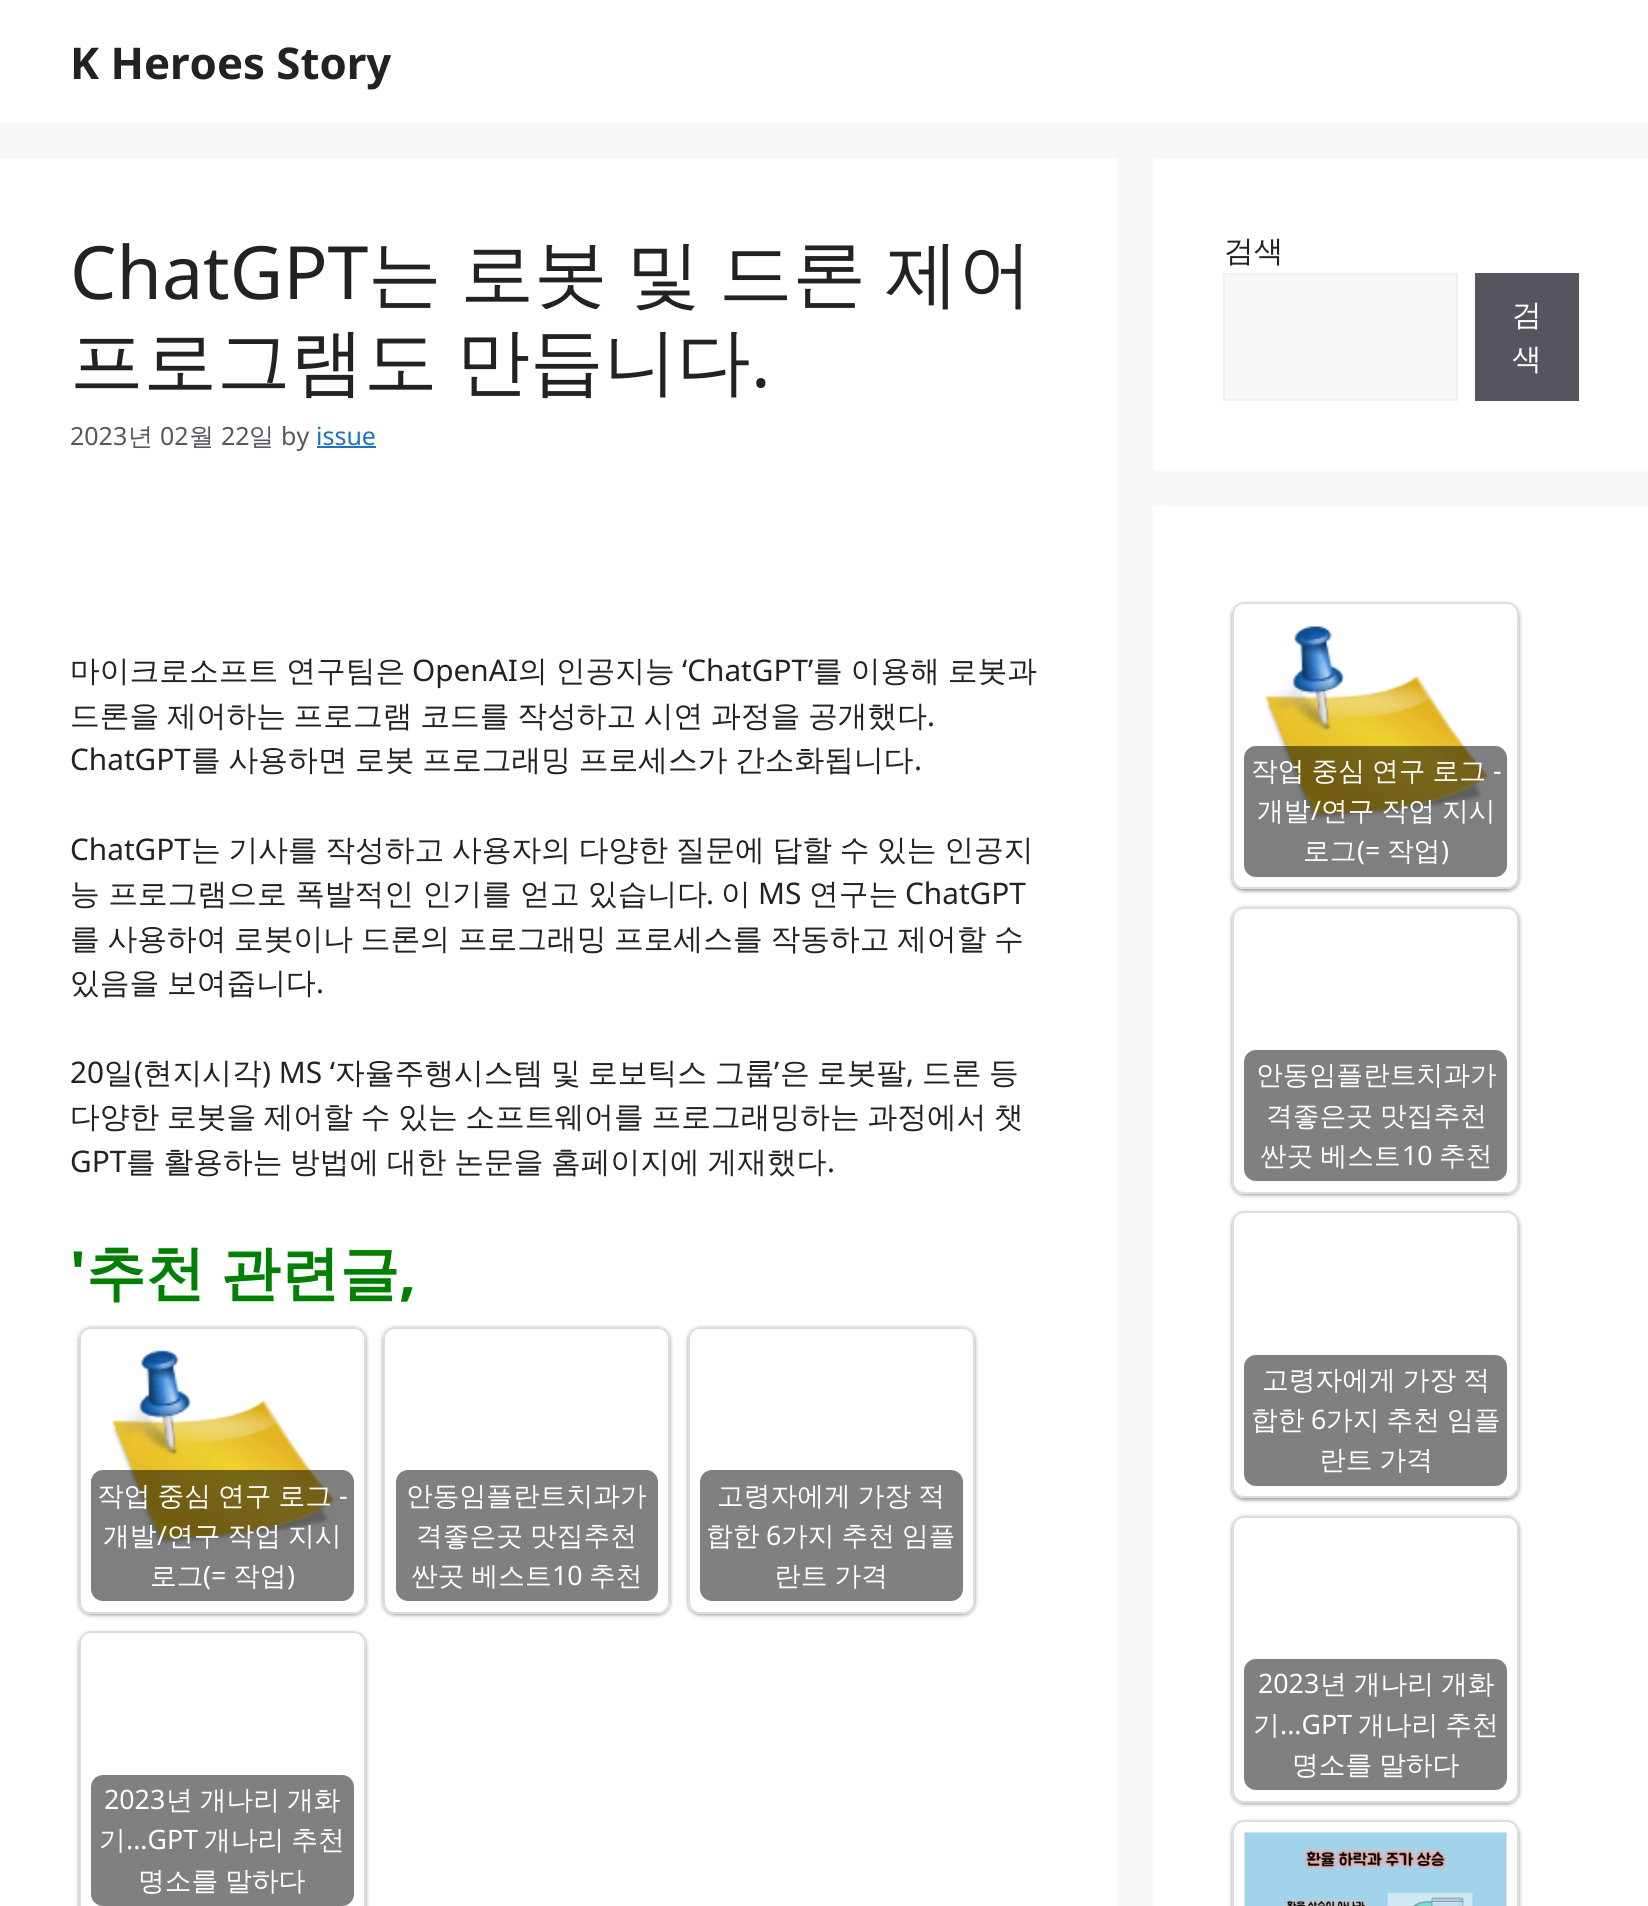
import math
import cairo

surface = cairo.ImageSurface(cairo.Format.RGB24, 1648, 1906)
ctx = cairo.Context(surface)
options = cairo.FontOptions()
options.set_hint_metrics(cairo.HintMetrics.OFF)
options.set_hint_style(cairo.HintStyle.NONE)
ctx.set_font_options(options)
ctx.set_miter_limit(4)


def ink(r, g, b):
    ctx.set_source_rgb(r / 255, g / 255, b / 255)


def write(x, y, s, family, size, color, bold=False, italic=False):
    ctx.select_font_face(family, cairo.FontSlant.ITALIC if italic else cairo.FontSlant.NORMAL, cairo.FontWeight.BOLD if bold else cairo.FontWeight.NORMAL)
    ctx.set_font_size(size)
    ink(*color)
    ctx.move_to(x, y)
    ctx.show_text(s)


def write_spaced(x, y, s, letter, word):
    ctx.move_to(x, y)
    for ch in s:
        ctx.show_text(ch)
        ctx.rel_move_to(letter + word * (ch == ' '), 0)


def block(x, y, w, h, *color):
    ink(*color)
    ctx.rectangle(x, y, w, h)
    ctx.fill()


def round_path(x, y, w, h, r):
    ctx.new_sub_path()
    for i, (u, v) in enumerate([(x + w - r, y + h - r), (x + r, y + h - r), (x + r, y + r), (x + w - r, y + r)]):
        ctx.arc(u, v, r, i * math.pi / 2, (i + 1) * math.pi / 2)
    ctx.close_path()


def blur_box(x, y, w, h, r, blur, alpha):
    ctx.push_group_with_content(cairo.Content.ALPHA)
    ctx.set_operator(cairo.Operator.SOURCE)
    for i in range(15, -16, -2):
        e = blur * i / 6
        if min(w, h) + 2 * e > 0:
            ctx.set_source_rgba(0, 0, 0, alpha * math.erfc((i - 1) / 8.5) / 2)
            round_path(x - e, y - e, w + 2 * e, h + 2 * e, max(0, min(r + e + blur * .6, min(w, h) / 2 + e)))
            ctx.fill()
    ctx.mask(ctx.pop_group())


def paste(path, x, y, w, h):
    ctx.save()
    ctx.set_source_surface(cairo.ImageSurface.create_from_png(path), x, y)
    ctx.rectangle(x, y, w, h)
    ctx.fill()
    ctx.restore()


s1 = dict(family="Noto Sans", size=43.75, color=(34, 34, 34), bold=True)
s2 = dict(family="Noto Sans", size=73.5, color=(34, 34, 34))
s3 = dict(family="Noto Sans", size=25, color=(87, 87, 96))
s4 = dict(family="WenQuanYi Zen Hei Medium", size=25, color=(87, 87, 96))
s5 = dict(family="Noto Sans", size=25, color=(30, 115, 190))
s6 = dict(family="Noto Sans", size=29.75, color=(34, 34, 34))
s7 = dict(family="WenQuanYi Zen Hei Medium", size=29.75, color=(34, 34, 34))
s8 = dict(family="Noto Sans", size=59.5, color=(0, 128, 0), bold=True)
s9 = dict(family="Noto Sans", size=26.75, color=(255, 255, 255))
s10 = dict(family="WenQuanYi Zen Hei Medium", size=26.75, color=(255, 255, 255))
s11 = dict(family="WenQuanYi Zen Hei Medium", size=29.75, color=(255, 255, 255))

ink(247, 248, 249)
ctx.paint()
block(0, 0, 1648, 123, 255, 255, 255)
write(70, 79, "K Heroes Story", **s1)
block(0, 158, 1118, 1748, 255, 255, 255)
write(70, 299, "ChatGPT", **s2)
ctx.select_font_face("WenQuanYi Zen Hei Medium")
write_spaced(368, 299, "는 로봇 및 드론 제어", 0, -3)
write_spaced(70, 387, "프로그램도 만듭니다", 0, -3)
write(751, 387, ".", **s2)
write(70, 445, "2023", **s3)
write(128, 445, "년", **s4)
write(160, 445, "02", **s3)
write(189, 445, "월", **s4)
write(221, 445, "22", **s3)
write(249, 445, "일", **s4)
write(281, 445, "by", **s3)
write(316, 445, "issue", **s5)
block(317, 446, 59, 2, 30, 115, 190)
ctx.select_font_face("WenQuanYi Zen Hei Medium")
ctx.set_font_size(29.75)
ink(34, 34, 34)
write_spaced(70, 681, "마이크로소프트 연구팀은", 0, -1)
write(412, 681, "OpenAI", **s6)
ctx.select_font_face("WenQuanYi Zen Hei Medium")
write_spaced(518, 681, "의 인공지능", 0, -1)
write(682, 681, "‘ChatGPT’", **s6)
ctx.select_font_face("WenQuanYi Zen Hei Medium")
write_spaced(813, 681, "를 이용해 로봇과", 0, -1)
write_spaced(70, 726, "드론을 제어하는 프로그램 코드를 작성하고 시연 과정을 공개했다", 0, -1.25)
write(927, 726, ".", **s6)
write(70, 770, "ChatGPT", **s6)
ctx.select_font_face("WenQuanYi Zen Hei Medium")
write_spaced(191, 770, "를 사용하면 로봇 프로그래밍 프로세스가 간소화됩니다", 0, -1.25)
write(914, 770, ".", **s6)
write(70, 860, "ChatGPT", **s6)
ctx.select_font_face("WenQuanYi Zen Hei Medium")
write_spaced(191, 860, "는 기사를 작성하고 사용자의 다양한 질문에 답할 수 있는 인공지", 0, -1.25)
write_spaced(70, 904, "능 프로그램으로 폭발적인 인기를 얻고 있습니다", 0, -0.5)
write(706, 904, ".", **s6)
write(721, 904, "이", **s7)
write(758, 904, "MS", **s6)
write(809, 904, "연구는", **s7)
write(905, 904, "ChatGPT", **s6)
ctx.select_font_face("WenQuanYi Zen Hei Medium")
write_spaced(70, 949, "를 사용하여 로봇이나 드론의 프로그래밍 프로세스를 작동하고 제어할 수", 0, -1.25)
write_spaced(70, 993, "있음을 보여줍니다", 0, -1.25)
write(316, 993, ".", **s6)
write(70, 1083, "20", **s6)
write(104, 1083, "일 현지시각", **s7)
write(335, 1083, "자율주행시스템", **s7)
write(551, 1083, "및", **s7)
write(588, 1083, "로보틱스", **s7)
write(817, 1083, "로봇팔", **s7)
write(134, 1083, "(", **s6)
write(262, 1083, ") MS ‘", **s6)
write(715, 1083, "그룹", **s7)
write(774, 1083, "’", **s6)
write(780, 1083, "은", **s7)
write(906, 1083, ",", **s6)
write(922, 1083, "드론", **s7)
write(989, 1083, "등", **s7)
write_spaced(70, 1127, "다양한 로봇을 제어할 수 있는 소프트웨어를 프로그래밍하는 과정에서 챗", 0, -1.25)
write(70, 1172, "GPT", **s6)
ctx.select_font_face("WenQuanYi Zen Hei Medium")
write_spaced(126, 1172, "를 활용하는 방법에 대한 논문을 홈페이지에 게재했다", 0, -1.25)
write(827, 1172, ".", **s6)
write(70, 1294, "'", **s8)
ctx.select_font_face("WenQuanYi Zen Hei", cairo.FontSlant.NORMAL, cairo.FontWeight.BOLD)
write_spaced(86, 1294, "추천 관련글", 0, -2)
write(399, 1294, ",", **s8)
ctx.save()
ctx.set_fill_rule(cairo.FillRule.EVEN_ODD)
ctx.new_path()
ctx.move_to(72, 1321)
ctx.line_to(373, 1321)
ctx.line_to(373, 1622)
ctx.line_to(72, 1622)
ctx.close_path()
ctx.move_to(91, 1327)
ctx.line_to(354, 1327)
ctx.curve_to(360.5, 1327, 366, 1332.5, 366, 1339)
ctx.line_to(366, 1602)
ctx.curve_to(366, 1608.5, 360.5, 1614, 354, 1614)
ctx.line_to(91, 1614)
ctx.curve_to(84.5, 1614, 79, 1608.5, 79, 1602)
ctx.line_to(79, 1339)
ctx.curve_to(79, 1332.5, 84.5, 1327, 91, 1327)
ctx.close_path()
ctx.clip()
ink(0, 0, 0)
blur_box(79, 1328, 287, 287, 12, 2, 0.4)
ctx.restore()
round_path(80, 1328, 285, 285, 11)
ink(221, 221, 221)
ctx.stroke()
paste("pic1.png", 111, 1350, 224, 195)
ctx.set_source_rgba(0, 0, 0, 0.5)
round_path(91, 1470, 263, 131, 12)
ctx.fill()
ctx.select_font_face("WenQuanYi Zen Hei Medium")
ctx.set_font_size(26.75)
ink(255, 255, 255)
write_spaced(97, 1505, "작업 중심 연구 로그", 0, -1)
write(339, 1505, "-", **s9)
write(103, 1545, "개발", **s10)
write(157, 1545, "/", **s9)
ctx.select_font_face("WenQuanYi Zen Hei Medium")
write_spaced(167, 1545, "연구 작업 지시", 0, -1)
write(150, 1585, "로그", **s10)
write(203, 1585, "(=", **s9)
write(233, 1585, "작업", **s10)
write(287, 1585, ")", **s9)
ctx.save()
ctx.set_fill_rule(cairo.FillRule.EVEN_ODD)
ctx.new_path()
ctx.move_to(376, 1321)
ctx.line_to(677, 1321)
ctx.line_to(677, 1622)
ctx.line_to(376, 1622)
ctx.close_path()
ctx.move_to(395, 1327)
ctx.line_to(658, 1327)
ctx.curve_to(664.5, 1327, 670, 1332.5, 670, 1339)
ctx.line_to(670, 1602)
ctx.curve_to(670, 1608.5, 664.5, 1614, 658, 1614)
ctx.line_to(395, 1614)
ctx.curve_to(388.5, 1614, 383, 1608.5, 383, 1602)
ctx.line_to(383, 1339)
ctx.curve_to(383, 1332.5, 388.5, 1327, 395, 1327)
ctx.close_path()
ctx.clip()
ink(0, 0, 0)
blur_box(383, 1328, 287, 287, 12, 2, 0.4)
ctx.restore()
round_path(384, 1328, 285, 285, 11)
ink(221, 221, 221)
ctx.stroke()
ink(128, 128, 128)
round_path(396, 1470, 262, 131, 12)
ctx.fill()
write(406, 1505, "안동임플란트치과가", **s10)
write_spaced(416, 1545, "격좋은곳 맛집추천", 0, -1)
write_spaced(411, 1585, "싼곳 베스트", 0, -1)
write(552, 1585, "10", **s9)
write(589, 1585, "추천", **s10)
ctx.save()
ctx.set_fill_rule(cairo.FillRule.EVEN_ODD)
ctx.new_path()
ctx.move_to(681, 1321)
ctx.line_to(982, 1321)
ctx.line_to(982, 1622)
ctx.line_to(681, 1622)
ctx.close_path()
ctx.move_to(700, 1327)
ctx.line_to(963, 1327)
ctx.curve_to(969.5, 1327, 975, 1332.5, 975, 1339)
ctx.line_to(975, 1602)
ctx.curve_to(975, 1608.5, 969.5, 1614, 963, 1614)
ctx.line_to(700, 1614)
ctx.curve_to(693.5, 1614, 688, 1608.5, 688, 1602)
ctx.line_to(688, 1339)
ctx.curve_to(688, 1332.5, 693.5, 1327, 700, 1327)
ctx.close_path()
ctx.clip()
ink(0, 0, 0)
blur_box(688, 1328, 287, 287, 12, 2, 0.4)
ctx.restore()
round_path(689, 1328, 285, 285, 11)
ink(221, 221, 221)
ctx.stroke()
ink(128, 128, 128)
round_path(700, 1470, 263, 131, 12)
ctx.fill()
ink(255, 255, 255)
write_spaced(717, 1505, "고령자에게 가장 적", 0, -1)
write(706, 1545, "합한", **s10)
write(766, 1545, "6", **s9)
ctx.select_font_face("WenQuanYi Zen Hei Medium")
write_spaced(781, 1545, "가지 추천 임플", 0, -1)
write_spaced(774, 1585, "란트 가격", 0, -1)
ctx.save()
ctx.set_fill_rule(cairo.FillRule.EVEN_ODD)
ctx.new_path()
ctx.move_to(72, 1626)
ctx.line_to(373, 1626)
ctx.line_to(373, 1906)
ctx.line_to(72, 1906)
ctx.close_path()
ctx.move_to(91, 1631)
ctx.line_to(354, 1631)
ctx.curve_to(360.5, 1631, 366, 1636.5, 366, 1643)
ctx.line_to(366, 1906)
ctx.curve_to(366, 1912.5, 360.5, 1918, 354, 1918)
ctx.line_to(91, 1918)
ctx.curve_to(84.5, 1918, 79, 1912.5, 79, 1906)
ctx.line_to(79, 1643)
ctx.curve_to(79, 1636.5, 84.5, 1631, 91, 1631)
ctx.close_path()
ctx.clip()
ink(0, 0, 0)
blur_box(79, 1633, 287, 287, 12, 2, 0.4)
ctx.restore()
round_path(80, 1632, 285, 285, 11)
ink(221, 221, 221)
ctx.stroke()
ink(128, 128, 128)
round_path(91, 1775, 263, 131, 12)
ctx.fill()
write(104, 1809, "2023", **s9)
ctx.select_font_face("WenQuanYi Zen Hei Medium")
write_spaced(166, 1809, "년 개나리 개화", 0, -1)
write(99, 1849, "기", **s10)
write(126, 1849, "...GPT", **s9)
ctx.select_font_face("WenQuanYi Zen Hei Medium")
write_spaced(204, 1849, "개나리 추천", 0, -1)
write_spaced(138, 1890, "명소를 말하다", 0, -1)
block(1153, 158, 495, 313, 255, 255, 255)
write(1224, 261, "검색", **s7)
ink(247, 248, 249)
ctx.rectangle(1224, 274, 233, 126)
ctx.fill_preserve()
ink(240, 240, 240)
ctx.stroke()
block(1475, 273, 104, 128, 85, 85, 94)
write(1512, 325, "검", **s11)
write(1512, 369, "색", **s11)
block(1153, 506, 495, 1400, 255, 255, 255)
ctx.save()
ctx.set_fill_rule(cairo.FillRule.EVEN_ODD)
ctx.new_path()
ctx.move_to(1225, 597)
ctx.line_to(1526, 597)
ctx.line_to(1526, 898)
ctx.line_to(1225, 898)
ctx.close_path()
ctx.move_to(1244, 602)
ctx.line_to(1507, 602)
ctx.curve_to(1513.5, 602, 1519, 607.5, 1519, 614)
ctx.line_to(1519, 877)
ctx.curve_to(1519, 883.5, 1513.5, 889, 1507, 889)
ctx.line_to(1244, 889)
ctx.curve_to(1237.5, 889, 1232, 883.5, 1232, 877)
ctx.line_to(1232, 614)
ctx.curve_to(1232, 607.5, 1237.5, 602, 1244, 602)
ctx.close_path()
ctx.clip()
ink(0, 0, 0)
blur_box(1232, 604, 287, 287, 12, 2, 0.4)
ctx.restore()
round_path(1233, 603, 285, 285, 11)
ink(221, 221, 221)
ctx.stroke()
paste("pic2.png", 1264, 626, 224, 194)
ctx.set_source_rgba(0, 0, 0, 0.5)
round_path(1244, 746, 263, 131, 12)
ctx.fill()
ctx.set_font_size(26.75)
ink(255, 255, 255)
write_spaced(1251, 780, "작업 중심 연구 로그", 0, -1)
write(1493, 780, "-", **s9)
write(1257, 820, "개발", **s10)
write(1311, 820, "/", **s9)
ctx.select_font_face("WenQuanYi Zen Hei Medium")
write_spaced(1321, 820, "연구 작업 지시", 0, -1)
write(1303, 860, "로그", **s10)
write(1357, 860, "(=", **s9)
write(1387, 860, "작업", **s10)
write(1441, 860, ")", **s9)
ctx.save()
ctx.set_fill_rule(cairo.FillRule.EVEN_ODD)
ctx.new_path()
ctx.move_to(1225, 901)
ctx.line_to(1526, 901)
ctx.line_to(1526, 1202)
ctx.line_to(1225, 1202)
ctx.close_path()
ctx.move_to(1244, 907)
ctx.line_to(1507, 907)
ctx.curve_to(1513.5, 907, 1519, 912.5, 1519, 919)
ctx.line_to(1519, 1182)
ctx.curve_to(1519, 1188.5, 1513.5, 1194, 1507, 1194)
ctx.line_to(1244, 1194)
ctx.curve_to(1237.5, 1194, 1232, 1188.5, 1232, 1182)
ctx.line_to(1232, 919)
ctx.curve_to(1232, 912.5, 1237.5, 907, 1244, 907)
ctx.close_path()
ctx.clip()
ink(0, 0, 0)
blur_box(1232, 908, 287, 287, 12, 2, 0.4)
ctx.restore()
round_path(1233, 908, 285, 285, 11)
ink(221, 221, 221)
ctx.stroke()
ink(128, 128, 128)
round_path(1244, 1050, 263, 131, 12)
ctx.fill()
write(1256, 1084, "안동임플란트치과가", **s10)
write_spaced(1266, 1125, "격좋은곳 맛집추천", 0, -1)
write_spaced(1260, 1165, "싼곳 베스트", 0, -1)
write(1402, 1165, "10", **s9)
write(1439, 1165, "추천", **s10)
ctx.save()
ctx.set_fill_rule(cairo.FillRule.EVEN_ODD)
ctx.new_path()
ctx.move_to(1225, 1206)
ctx.line_to(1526, 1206)
ctx.line_to(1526, 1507)
ctx.line_to(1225, 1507)
ctx.close_path()
ctx.move_to(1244, 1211)
ctx.line_to(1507, 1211)
ctx.curve_to(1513.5, 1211, 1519, 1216.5, 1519, 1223)
ctx.line_to(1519, 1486)
ctx.curve_to(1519, 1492.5, 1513.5, 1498, 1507, 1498)
ctx.line_to(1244, 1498)
ctx.curve_to(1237.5, 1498, 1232, 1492.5, 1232, 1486)
ctx.line_to(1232, 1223)
ctx.curve_to(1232, 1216.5, 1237.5, 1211, 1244, 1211)
ctx.close_path()
ctx.clip()
ink(0, 0, 0)
blur_box(1232, 1213, 287, 287, 12, 2, 0.4)
ctx.restore()
round_path(1233, 1212, 285, 285, 11)
ink(221, 221, 221)
ctx.stroke()
ink(128, 128, 128)
round_path(1244, 1355, 263, 131, 12)
ctx.fill()
ink(255, 255, 255)
write_spaced(1262, 1389, "고령자에게 가장 적", 0, -1)
write(1251, 1429, "합한", **s10)
write(1311, 1429, "6", **s9)
ctx.select_font_face("WenQuanYi Zen Hei Medium")
write_spaced(1326, 1429, "가지 추천 임플", 0, -1)
write_spaced(1319, 1469, "란트 가격", 0, -1)
ctx.save()
ctx.set_fill_rule(cairo.FillRule.EVEN_ODD)
ctx.new_path()
ctx.move_to(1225, 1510)
ctx.line_to(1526, 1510)
ctx.line_to(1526, 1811)
ctx.line_to(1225, 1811)
ctx.close_path()
ctx.move_to(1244, 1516)
ctx.line_to(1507, 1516)
ctx.curve_to(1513.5, 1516, 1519, 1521.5, 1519, 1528)
ctx.line_to(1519, 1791)
ctx.curve_to(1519, 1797.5, 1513.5, 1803, 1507, 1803)
ctx.line_to(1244, 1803)
ctx.curve_to(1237.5, 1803, 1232, 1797.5, 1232, 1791)
ctx.line_to(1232, 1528)
ctx.curve_to(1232, 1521.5, 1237.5, 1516, 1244, 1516)
ctx.close_path()
ctx.clip()
ink(0, 0, 0)
blur_box(1232, 1517, 287, 287, 12, 2, 0.4)
ctx.restore()
round_path(1233, 1517, 285, 285, 11)
ink(221, 221, 221)
ctx.stroke()
ink(128, 128, 128)
round_path(1244, 1659, 263, 131, 12)
ctx.fill()
write(1258, 1693, "2023", **s9)
ctx.select_font_face("WenQuanYi Zen Hei Medium")
write_spaced(1320, 1693, "년 개나리 개화", 0, -1)
write(1253, 1734, "기", **s10)
write(1280, 1734, "...GPT", **s9)
ctx.select_font_face("WenQuanYi Zen Hei Medium")
write_spaced(1358, 1734, "개나리 추천", 0, -1)
write_spaced(1292, 1774, "명소를 말하다", 0, -1)
ctx.save()
ctx.set_fill_rule(cairo.FillRule.EVEN_ODD)
ctx.new_path()
ctx.move_to(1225, 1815)
ctx.line_to(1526, 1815)
ctx.line_to(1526, 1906)
ctx.line_to(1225, 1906)
ctx.close_path()
ctx.move_to(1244, 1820)
ctx.line_to(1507, 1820)
ctx.curve_to(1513.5, 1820, 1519, 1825.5, 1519, 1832)
ctx.line_to(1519, 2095)
ctx.curve_to(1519, 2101.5, 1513.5, 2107, 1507, 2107)
ctx.line_to(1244, 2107)
ctx.curve_to(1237.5, 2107, 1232, 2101.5, 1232, 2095)
ctx.line_to(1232, 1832)
ctx.curve_to(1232, 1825.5, 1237.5, 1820, 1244, 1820)
ctx.close_path()
ctx.clip()
ink(0, 0, 0)
blur_box(1232, 1822, 287, 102, 12, 2, 0.4)
ctx.restore()
round_path(1233, 1821, 285, 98, 11)
ink(221, 221, 221)
ctx.stroke()
paste("pic3.png", 1244, 1832, 263, 74)
surface.write_to_png("screenshot.png")
